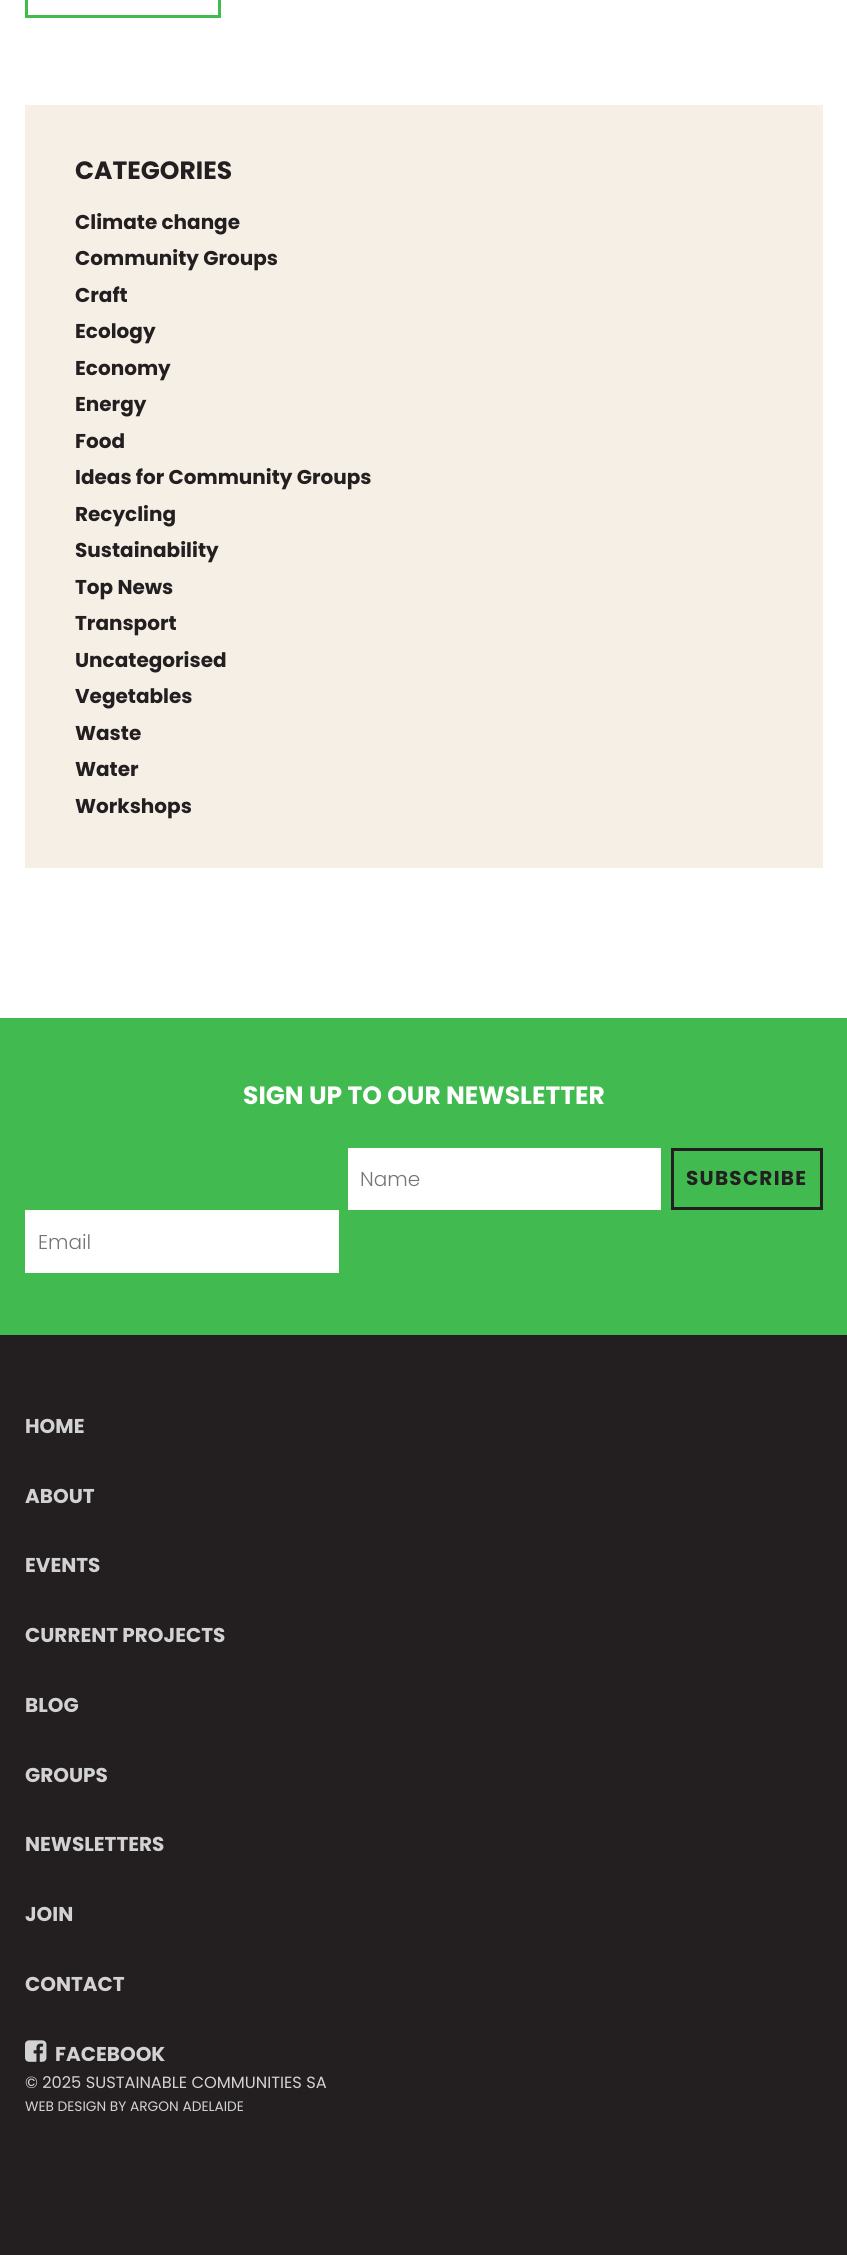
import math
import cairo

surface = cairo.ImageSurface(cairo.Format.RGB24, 847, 2255)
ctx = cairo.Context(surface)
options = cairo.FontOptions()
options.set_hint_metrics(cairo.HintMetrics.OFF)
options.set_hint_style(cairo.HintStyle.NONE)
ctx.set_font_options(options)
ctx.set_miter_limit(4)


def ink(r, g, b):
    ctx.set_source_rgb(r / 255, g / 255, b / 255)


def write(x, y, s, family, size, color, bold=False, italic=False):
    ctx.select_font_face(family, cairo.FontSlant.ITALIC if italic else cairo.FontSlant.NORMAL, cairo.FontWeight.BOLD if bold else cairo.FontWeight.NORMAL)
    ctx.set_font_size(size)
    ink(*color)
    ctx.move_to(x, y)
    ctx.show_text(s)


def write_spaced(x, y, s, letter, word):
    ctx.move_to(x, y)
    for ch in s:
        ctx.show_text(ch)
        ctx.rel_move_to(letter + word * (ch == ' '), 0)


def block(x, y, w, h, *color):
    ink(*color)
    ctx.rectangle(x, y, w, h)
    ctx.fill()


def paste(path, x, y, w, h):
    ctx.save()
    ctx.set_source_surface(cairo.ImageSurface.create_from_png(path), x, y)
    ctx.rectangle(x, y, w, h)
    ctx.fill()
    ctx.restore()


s1 = dict(family="Poppins", size=25, color=(35, 31, 32), bold=True)
s2 = dict(family="Poppins", size=20, color=(35, 31, 32), bold=True)
s3 = dict(family="Poppins", size=25, color=(255, 255, 255), bold=True)
s4 = dict(family="Poppins Light", size=20, color=(117, 117, 117))
s5 = dict(family="Poppins", size=20, color=(211, 210, 210), bold=True)
s6 = dict(family="Poppins", size=16.25, color=(211, 210, 210))
s7 = dict(family="Poppins", size=13.75, color=(211, 210, 210))

ink(255, 255, 255)
ctx.paint()
ctx.rectangle(26.5, -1.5, 193, 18)
ink(65, 186, 79)
ctx.set_line_width(3)
ctx.stroke()
block(25, 105, 798, 763, 245, 239, 230)
write(75, 179, "CATEGORIES", **s1)
write(75, 229, "Climate change", **s2)
write(75, 265, "Community Groups", **s2)
write(75, 302, "Craft", **s2)
write(75, 338, "Ecology", **s2)
write(75, 375, "Economy", **s2)
write(75, 411, "Energy", **s2)
write(75, 448, "Food", **s2)
write(75, 484, "Ideas for Community Groups", **s2)
write(75, 521, "Recycling", **s2)
write(75, 557, "Sustainability", **s2)
write(75, 594, "Top News", **s2)
write(75, 630, "Transport", **s2)
write(75, 667, "Uncategorised", **s2)
write(75, 703, "Vegetables", **s2)
write(75, 740, "Waste", **s2)
write(75, 776, "Water", **s2)
write(75, 813, "Workshops", **s2)
block(0, 1018, 847, 317, 65, 186, 79)
write(243, 1104, "SIGN UP TO OUR NEWSLETTER", **s3)
block(348, 1148, 313, 62, 255, 255, 255)
write(360, 1186, "Name", **s4)
block(25, 1210, 314, 63, 255, 255, 255)
write(38, 1249, "Email", **s4)
ctx.rectangle(672.5, 1149.5, 149, 59)
ink(35, 31, 32)
ctx.stroke()
ctx.select_font_face("Poppins", cairo.FontSlant.NORMAL, cairo.FontWeight.BOLD)
write_spaced(686, 1185, "SUBSCRIBE", 1.25, 0)
block(0, 1335, 847, 920, 35, 31, 32)
write(25, 1433, "HOME", **s5)
write(25, 1503, "ABOUT", **s5)
write(25, 1572, "EVENTS", **s5)
write(25, 1642, "CURRENT PROJECTS", **s5)
write(25, 1712, "BLOG", **s5)
write(25, 1782, "GROUPS", **s5)
write(25, 1851, "NEWSLETTERS", **s5)
write(25, 1921, "JOIN", **s5)
write(25, 1991, "CONTACT", **s5)
paste("pic1.png", 25, 2040, 22, 22)
write(55, 2061, "FACEBOOK", **s5)
write(25, 2088, "© 2025 SUSTAINABLE COMMUNITIES SA", **s6)
write(25, 2111, "WEB DESIGN BY ARGON ADELAIDE", **s7)
surface.write_to_png("screenshot.png")
